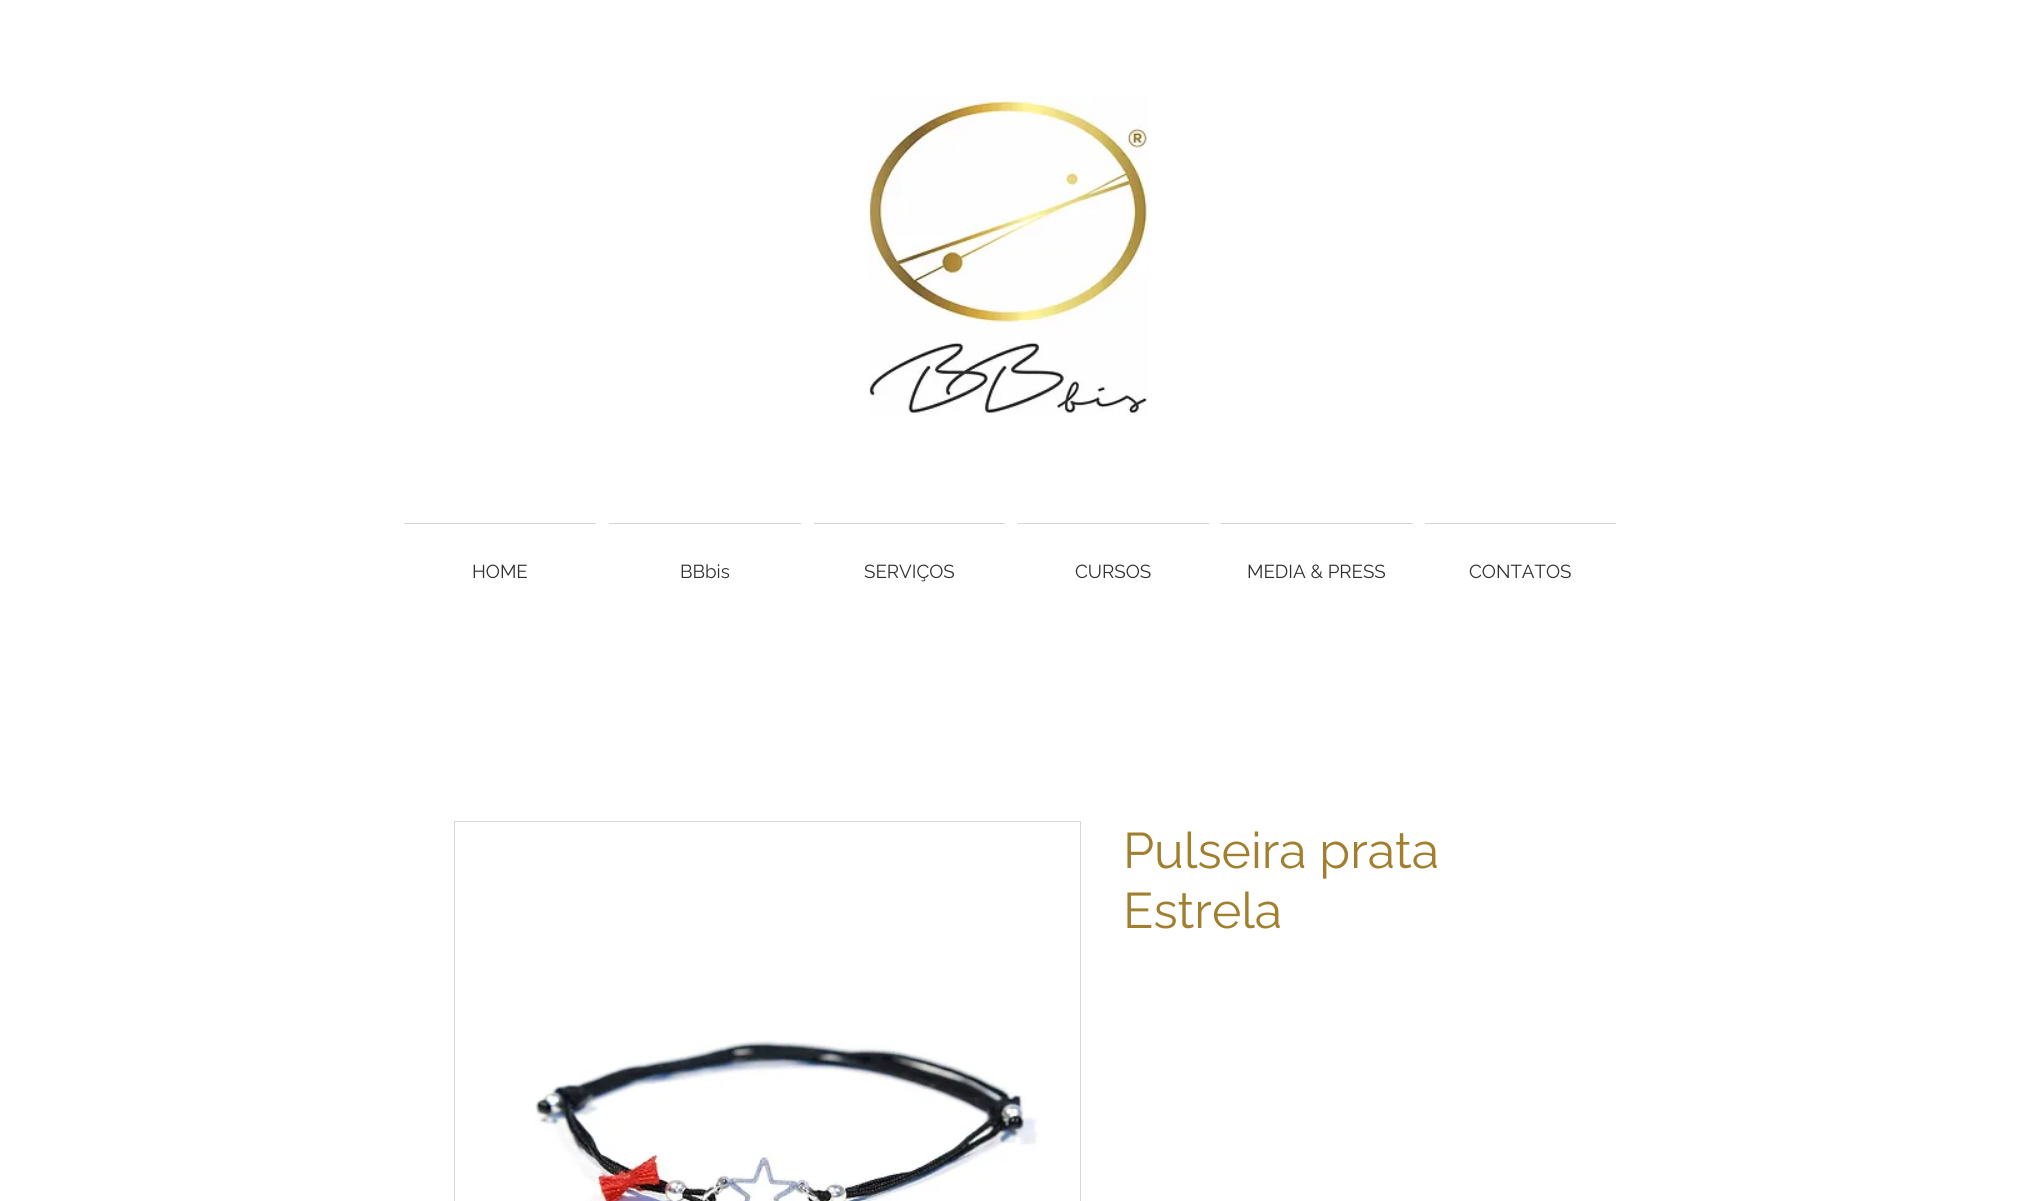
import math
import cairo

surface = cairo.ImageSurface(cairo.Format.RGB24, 2020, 1201)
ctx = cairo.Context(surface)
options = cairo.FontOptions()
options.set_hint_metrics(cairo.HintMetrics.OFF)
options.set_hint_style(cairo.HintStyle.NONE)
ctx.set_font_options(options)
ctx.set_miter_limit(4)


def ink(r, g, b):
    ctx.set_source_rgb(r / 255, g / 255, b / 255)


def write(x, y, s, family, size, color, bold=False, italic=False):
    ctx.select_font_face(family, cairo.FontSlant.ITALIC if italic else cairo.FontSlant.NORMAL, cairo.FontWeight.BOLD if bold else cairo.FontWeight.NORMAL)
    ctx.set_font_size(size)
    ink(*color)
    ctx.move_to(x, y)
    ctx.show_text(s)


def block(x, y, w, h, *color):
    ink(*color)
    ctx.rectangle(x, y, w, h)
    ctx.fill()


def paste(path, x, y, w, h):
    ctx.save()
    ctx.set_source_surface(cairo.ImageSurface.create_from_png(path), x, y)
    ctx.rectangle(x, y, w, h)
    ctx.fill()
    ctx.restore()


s1 = dict(family="Raleway", size=18.75, color=(48, 48, 48))
s2 = dict(family="Raleway", size=50, color=(161, 127, 46))

ink(255, 255, 255)
ctx.paint()
paste("pic1.png", 868, 95, 281, 320)
block(404, 523, 192, 1, 214, 214, 214)
write(472, 578, "HOME", **s1)
block(609, 523, 192, 1, 214, 214, 214)
write(680, 578, "BBbis", **s1)
block(814, 523, 191, 1, 214, 214, 214)
write(864, 578, "SERVIÇOS", **s1)
block(1018, 523, 191, 1, 214, 214, 214)
write(1075, 578, "CURSOS", **s1)
block(1221, 523, 192, 1, 214, 214, 214)
write(1247, 578, "MEDIA & PRESS", **s1)
block(1425, 523, 191, 1, 214, 214, 214)
write(1469, 578, "CONTATOS", **s1)
ctx.rectangle(454.5, 821.5, 626, 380)
ink(214, 214, 214)
ctx.set_line_width(1)
ctx.stroke()
paste("pic2.png", 535, 1040, 503, 161)
write(1123, 868, "Pulseira prata", **s2)
write(1123, 928, "Estrela", **s2)
surface.write_to_png("screenshot.png")
